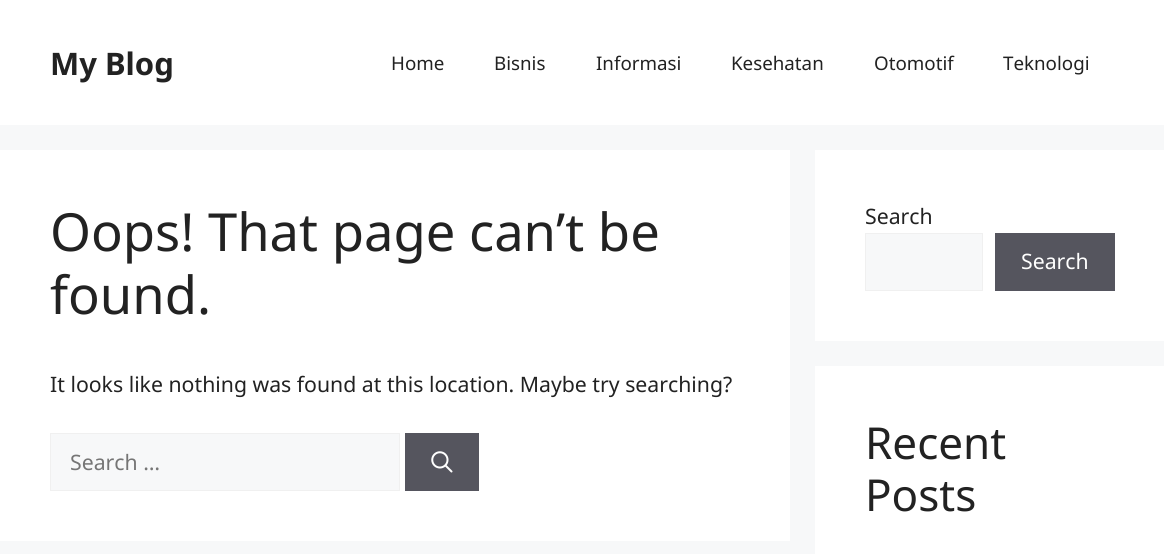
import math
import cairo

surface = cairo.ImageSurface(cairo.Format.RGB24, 1164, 554)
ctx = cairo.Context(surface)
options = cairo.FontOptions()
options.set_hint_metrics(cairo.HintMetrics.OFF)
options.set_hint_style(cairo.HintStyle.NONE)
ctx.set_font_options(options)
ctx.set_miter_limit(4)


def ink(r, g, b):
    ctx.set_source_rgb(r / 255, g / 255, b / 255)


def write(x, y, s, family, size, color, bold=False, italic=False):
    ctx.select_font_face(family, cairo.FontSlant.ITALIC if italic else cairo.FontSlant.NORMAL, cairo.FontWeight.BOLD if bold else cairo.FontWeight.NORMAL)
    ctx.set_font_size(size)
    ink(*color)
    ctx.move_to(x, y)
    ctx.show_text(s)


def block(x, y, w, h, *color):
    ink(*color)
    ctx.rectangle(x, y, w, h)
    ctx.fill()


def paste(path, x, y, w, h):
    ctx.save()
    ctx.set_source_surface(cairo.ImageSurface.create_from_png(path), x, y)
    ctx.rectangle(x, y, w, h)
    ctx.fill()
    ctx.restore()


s1 = dict(family="Noto Sans", size=31, color=(34, 34, 34), bold=True)
s2 = dict(family="Noto Sans", size=18.75, color=(34, 34, 34))
s3 = dict(family="Noto Sans", size=52.5, color=(34, 34, 34))
s4 = dict(family="Noto Sans", size=21.25, color=(34, 34, 34))
s5 = dict(family="Noto Sans", size=21.25, color=(117, 117, 117))
s6 = dict(family="Noto Sans", size=21.25, color=(255, 255, 255))
s7 = dict(family="Noto Sans", size=44, color=(34, 34, 34))

ink(247, 248, 249)
ctx.paint()
block(0, 0, 1164, 125, 255, 255, 255)
write(50, 75, "My Blog", **s1)
write(391, 70, "Home", **s2)
write(494, 70, "Bisnis", **s2)
write(596, 70, "Informasi", **s2)
write(731, 70, "Kesehatan", **s2)
write(874, 70, "Otomotif", **s2)
write(1003, 70, "Teknologi", **s2)
block(0, 150, 790, 391, 255, 255, 255)
write(50, 251, "Oops! That page can’t be", **s3)
write(50, 314, "found.", **s3)
write(50, 392, "It looks like nothing was found at this location. Maybe try searching?", **s4)
ink(247, 248, 249)
ctx.rectangle(50.5, 433.5, 349, 57)
ctx.fill_preserve()
ink(240, 240, 240)
ctx.set_line_width(1)
ctx.stroke()
write(70, 470, "Search …", **s5)
block(405, 433, 74, 58, 85, 85, 94)
paste("pic1.png", 431, 451, 22, 22)
block(815, 150, 349, 191, 255, 255, 255)
write(865, 224, "Search", **s4)
ink(247, 248, 249)
ctx.rectangle(865.5, 233.5, 117, 57)
ctx.fill_preserve()
ink(240, 240, 240)
ctx.stroke()
block(995, 233, 120, 58, 85, 85, 94)
write(1021, 269, "Search", **s6)
block(815, 366, 349, 188, 255, 255, 255)
write(865, 459, "Recent", **s7)
write(865, 511, "Posts", **s7)
surface.write_to_png("screenshot.png")
